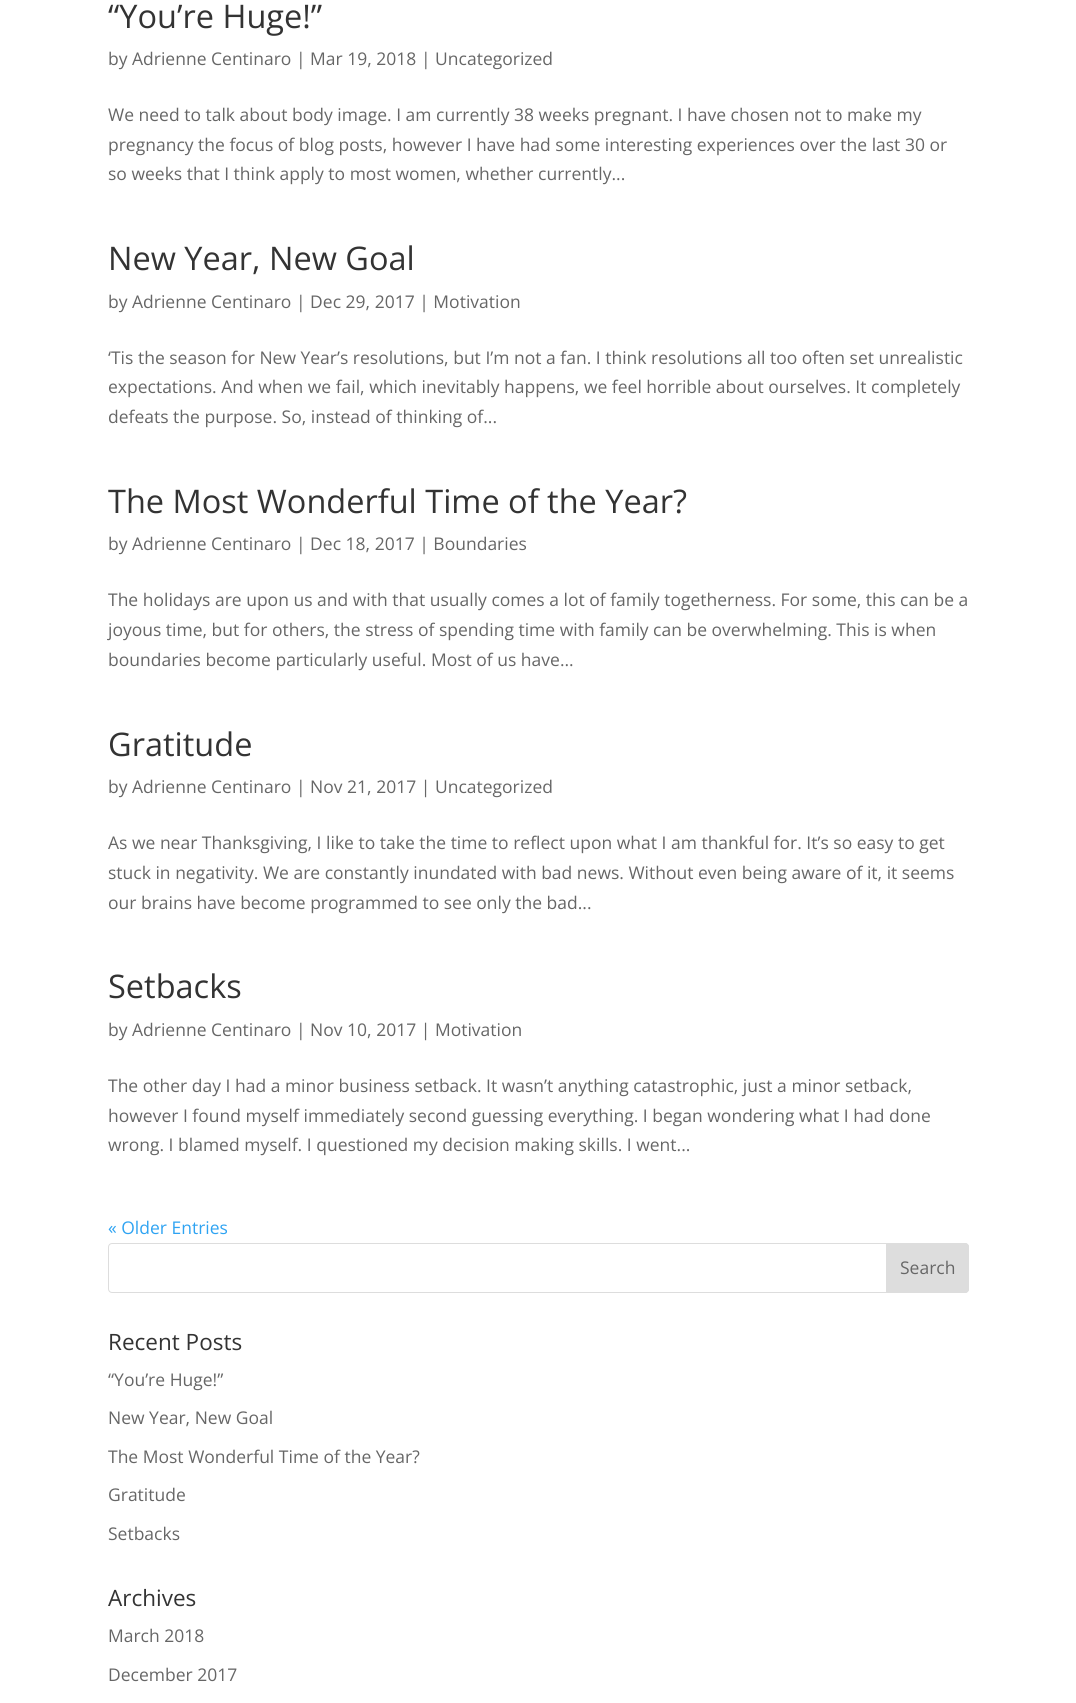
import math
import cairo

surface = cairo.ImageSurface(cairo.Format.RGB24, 1076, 1703)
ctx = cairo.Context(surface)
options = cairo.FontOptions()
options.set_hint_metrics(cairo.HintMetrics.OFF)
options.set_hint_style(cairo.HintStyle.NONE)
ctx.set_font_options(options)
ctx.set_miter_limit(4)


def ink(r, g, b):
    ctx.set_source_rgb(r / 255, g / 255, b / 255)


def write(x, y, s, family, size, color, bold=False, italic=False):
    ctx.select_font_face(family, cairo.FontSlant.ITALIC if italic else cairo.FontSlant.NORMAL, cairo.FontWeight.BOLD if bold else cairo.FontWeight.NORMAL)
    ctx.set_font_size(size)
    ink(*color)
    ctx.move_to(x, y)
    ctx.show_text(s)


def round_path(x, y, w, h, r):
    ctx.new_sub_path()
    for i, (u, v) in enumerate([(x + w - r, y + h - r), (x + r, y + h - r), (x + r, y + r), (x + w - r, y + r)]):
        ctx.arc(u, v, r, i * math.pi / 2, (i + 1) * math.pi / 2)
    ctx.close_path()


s1 = dict(family="Open Sans", size=32.5, color=(51, 51, 51))
s2 = dict(family="Open Sans", size=17.5, color=(102, 102, 102))
s3 = dict(family="Open Sans", size=17.5, color=(46, 163, 242))
s4 = dict(family="Open Sans", size=22.5, color=(51, 51, 51))

ink(255, 255, 255)
ctx.paint()
write(108, 28, "“You’re Huge!”", **s1)
write(108, 65, "by Adrienne Centinaro | Mar 19, 2018 | Uncategorized", **s2)
write(108, 121, "We need to talk about body image. I am currently 38 weeks pregnant. I have chosen not to make my", **s2)
write(108, 151, "pregnancy the focus of blog posts, however I have had some interesting experiences over the last 30 or", **s2)
write(108, 180, "so weeks that I think apply to most women, whether currently...", **s2)
write(108, 270, "New Year, New Goal", **s1)
write(108, 308, "by Adrienne Centinaro | Dec 29, 2017 | Motivation", **s2)
write(108, 364, "‘Tis the season for New Year’s resolutions, but I’m not a fan. I think resolutions all too often set unrealistic", **s2)
write(108, 393, "expectations. And when we fail, which inevitably happens, we feel horrible about ourselves. It completely", **s2)
write(108, 423, "defeats the purpose. So, instead of thinking of...", **s2)
write(108, 513, "The Most Wonderful Time of the Year?", **s1)
write(108, 550, "by Adrienne Centinaro | Dec 18, 2017 | Boundaries", **s2)
write(108, 606, "The holidays are upon us and with that usually comes a lot of family togetherness. For some, this can be a", **s2)
write(108, 636, "joyous time, but for others, the stress of spending time with family can be overwhelming. This is when", **s2)
write(108, 666, "boundaries become particularly useful. Most of us have...", **s2)
write(108, 756, "Gratitude", **s1)
write(108, 793, "by Adrienne Centinaro | Nov 21, 2017 | Uncategorized", **s2)
write(108, 849, "As we near Thanksgiving, I like to take the time to reflect upon what I am thankful for. It’s so easy to get", **s2)
write(108, 879, "stuck in negativity. We are constantly inundated with bad news. Without even being aware of it, it seems", **s2)
write(108, 909, "our brains have become programmed to see only the bad...", **s2)
write(108, 998, "Setbacks", **s1)
write(108, 1036, "by Adrienne Centinaro | Nov 10, 2017 | Motivation", **s2)
write(108, 1092, "The other day I had a minor business setback. It wasn’t anything catastrophic, just a minor setback,", **s2)
write(108, 1122, "however I found myself immediately second guessing everything. I began wondering what I had done", **s2)
write(108, 1151, "wrong. I blamed myself. I questioned my decision making skills. I went...", **s2)
write(108, 1234, "« Older Entries", **s3)
round_path(108.5, 1243.5, 860, 49, 3.5)
ink(221, 221, 221)
ctx.set_line_width(1)
ctx.stroke()
ctx.new_path()
ctx.move_to(886.5, 1243.5)
ctx.line_to(965, 1243.5)
ctx.curve_to(967, 1243.5, 968.5, 1245, 968.5, 1247)
ctx.line_to(968.5, 1289)
ctx.curve_to(968.5, 1291, 967, 1292.5, 965, 1292.5)
ctx.line_to(886.5, 1292.5)
ctx.close_path()
ctx.fill_preserve()
ctx.stroke()
write(900, 1274, "Search", **s2)
write(108, 1350, "Recent Posts", **s4)
write(108, 1386, "“You’re Huge!”", **s2)
write(108, 1424, "New Year, New Goal", **s2)
write(108, 1463, "The Most Wonderful Time of the Year?", **s2)
write(108, 1501, "Gratitude", **s2)
write(108, 1540, "Setbacks", **s2)
write(108, 1606, "Archives", **s4)
write(108, 1642, "March 2018", **s2)
write(108, 1681, "December 2017", **s2)
surface.write_to_png("screenshot.png")
